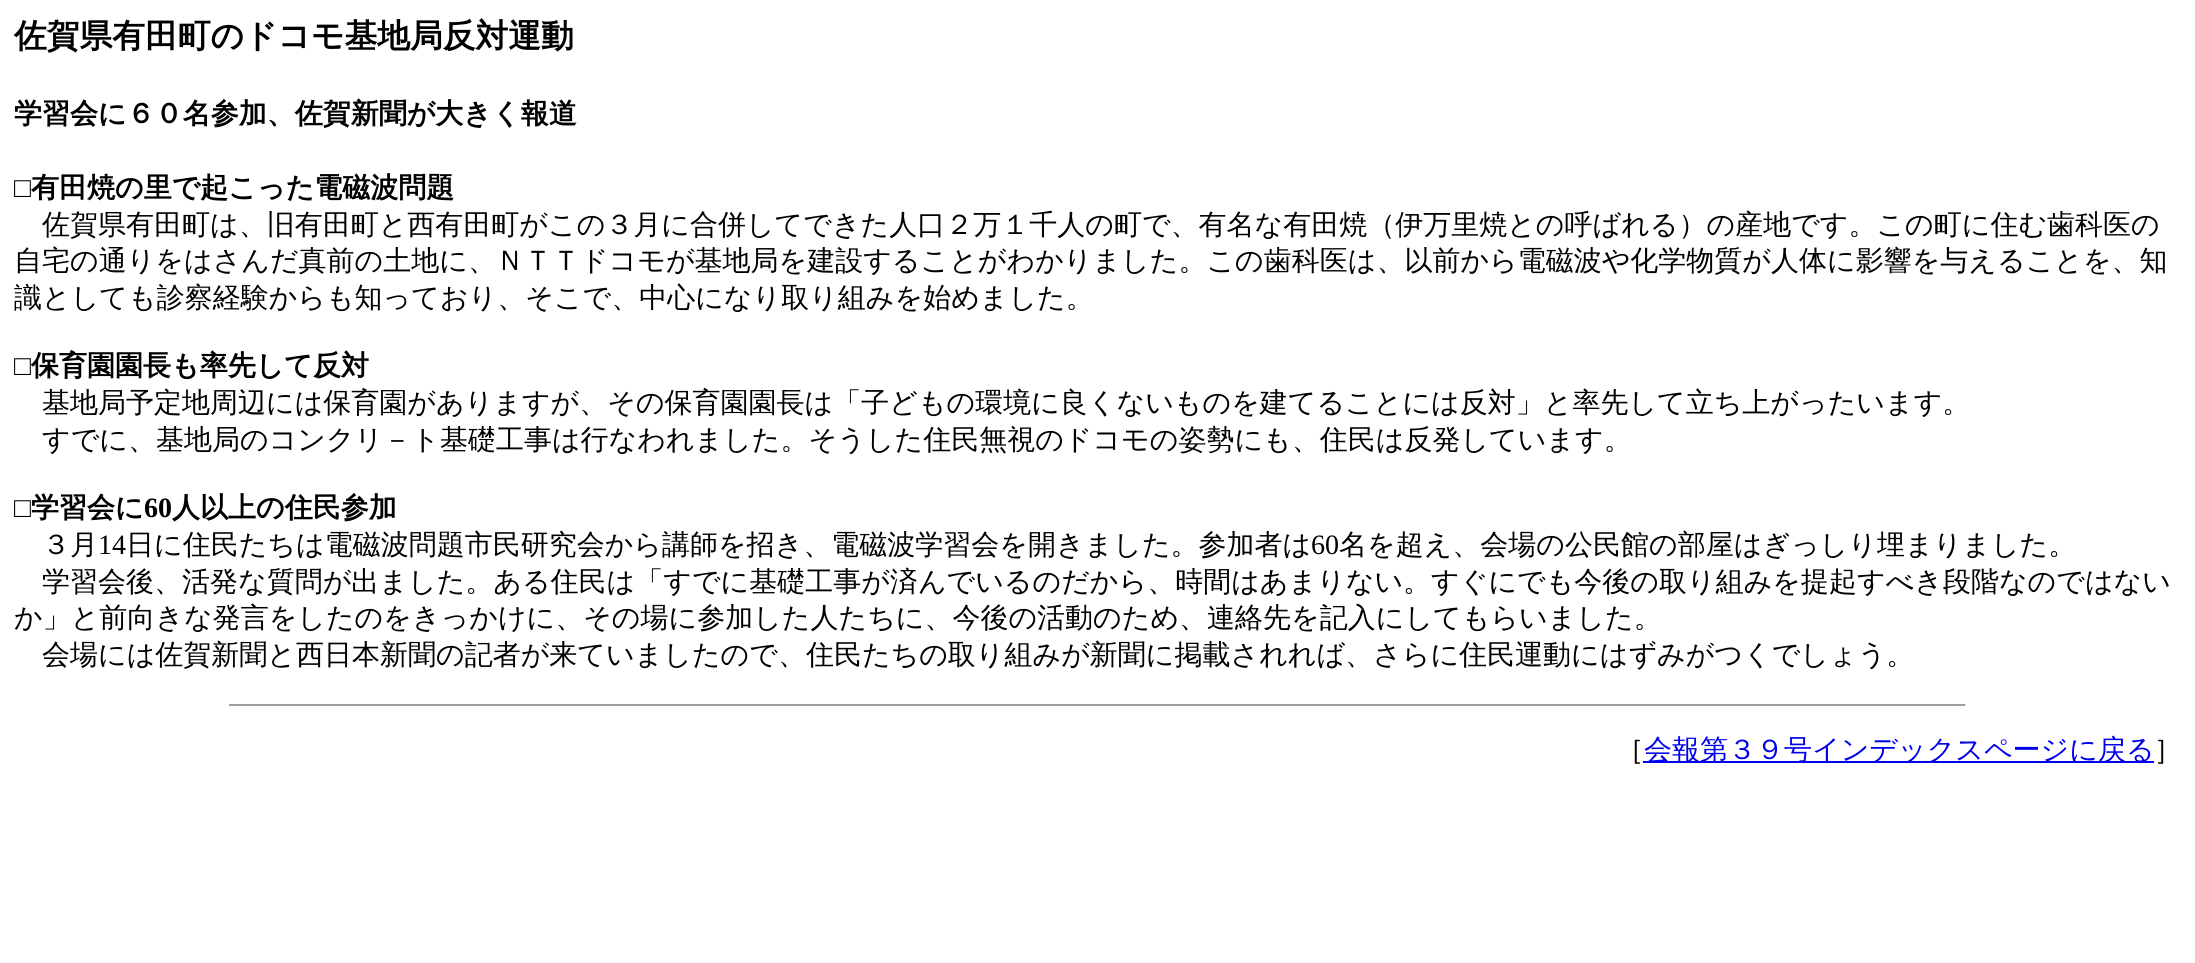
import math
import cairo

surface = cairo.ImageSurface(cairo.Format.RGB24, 2195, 963)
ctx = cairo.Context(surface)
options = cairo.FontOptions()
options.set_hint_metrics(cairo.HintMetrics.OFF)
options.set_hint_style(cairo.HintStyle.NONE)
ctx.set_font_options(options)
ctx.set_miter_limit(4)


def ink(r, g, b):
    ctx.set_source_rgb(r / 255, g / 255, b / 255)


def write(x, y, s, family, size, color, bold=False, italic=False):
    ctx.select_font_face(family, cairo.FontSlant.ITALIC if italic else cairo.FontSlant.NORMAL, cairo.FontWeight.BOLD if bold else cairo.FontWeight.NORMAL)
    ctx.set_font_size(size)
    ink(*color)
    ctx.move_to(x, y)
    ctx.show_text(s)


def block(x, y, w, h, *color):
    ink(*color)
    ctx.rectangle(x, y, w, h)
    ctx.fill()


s1 = dict(family="WenQuanYi Zen Hei", size=32.75, color=(0, 0, 0), bold=True)
s2 = dict(family="WenQuanYi Zen Hei", size=28, color=(0, 0, 0), bold=True)
s3 = dict(family="Liberation Serif", size=28, color=(0, 0, 0), bold=True)
s4 = dict(family="WenQuanYi Zen Hei Medium", size=28, color=(0, 0, 0))
s5 = dict(family="Liberation Serif", size=28, color=(0, 0, 0))
s6 = dict(family="WenQuanYi Zen Hei Medium", size=28, color=(0, 0, 238))

ink(255, 255, 255)
ctx.paint()
write(14, 47, "佐賀県有田町のドコモ基地局反対運動", **s1)
write(14, 123, "学習会に６０名参加、佐賀新聞が大きく報道", **s2)
write(14, 197, "□", **s3)
write(31, 197, "有田焼の里で起こった電磁波問題", **s2)
write(42, 234, "佐賀県有田町は、旧有田町と西有田町がこの３月に合併してできた人口２万１千人の町で、有名な有田焼（伊万里焼との呼ばれる）の産地です。この町に住む歯科医の", **s4)
write(14, 270, "自宅の通りをはさんだ真前の土地に、ＮＴＴドコモが基地局を建設することがわかりました。この歯科医は、以前から電磁波や化学物質が人体に影響を与えることを、知", **s4)
write(14, 307, "識としても診察経験からも知っており、そこで、中心になり取り組みを始めました。", **s4)
write(14, 375, "□", **s3)
write(31, 375, "保育園園長も率先して反対", **s2)
write(42, 412, "基地局予定地周辺には保育園がありますが、その保育園園長は「子どもの環境に良くないものを建てることには反対」と率先して立ち上がったいます。", **s4)
write(42, 449, "すでに、基地局のコンクリ－ト基礎工事は行なわれました。そうした住民無視のドコモの姿勢にも、住民は反発しています。", **s4)
write(14, 517, "□", **s3)
write(31, 517, "学習会に", **s2)
write(144, 517, "60", **s3)
write(172, 517, "人以上の住民参加", **s2)
write(42, 554, "３月", **s4)
write(98, 554, "14", **s5)
write(126, 554, "日に住民たちは電磁波問題市民研究会から講師を招き、電磁波学習会を開きました。参加者は", **s4)
write(1311, 554, "60", **s5)
write(1339, 554, "名を超え、会場の公民館の部屋はぎっしり埋まりました。", **s4)
write(42, 591, "学習会後、活発な質問が出ました。ある住民は「すでに基礎工事が済んでいるのだから、時間はあまりない。すぐにでも今後の取り組みを提起すべき段階なのではない", **s4)
write(14, 627, "か」と前向きな発言をしたのをきっかけに、その場に参加した人たちに、今後の活動のため、連絡先を記入にしてもらいました。", **s4)
write(42, 664, "会場には佐賀新聞と西日本新聞の記者が来ていましたので、住民たちの取り組みが新聞に掲載されれば、さらに住民運動にはずみがつくでしょう。", **s4)
block(229, 704, 1738, 2, 159, 159, 159)
block(1965, 704, 2, 2, 238, 238, 238)
write(1616, 759, "［", **s4)
block(1643, 761, 511, 2, 0, 0, 238)
write(1644, 759, "会報第３９号インデックスページに戻る", **s6)
write(2154, 759, "］", **s4)
surface.write_to_png("screenshot.png")
